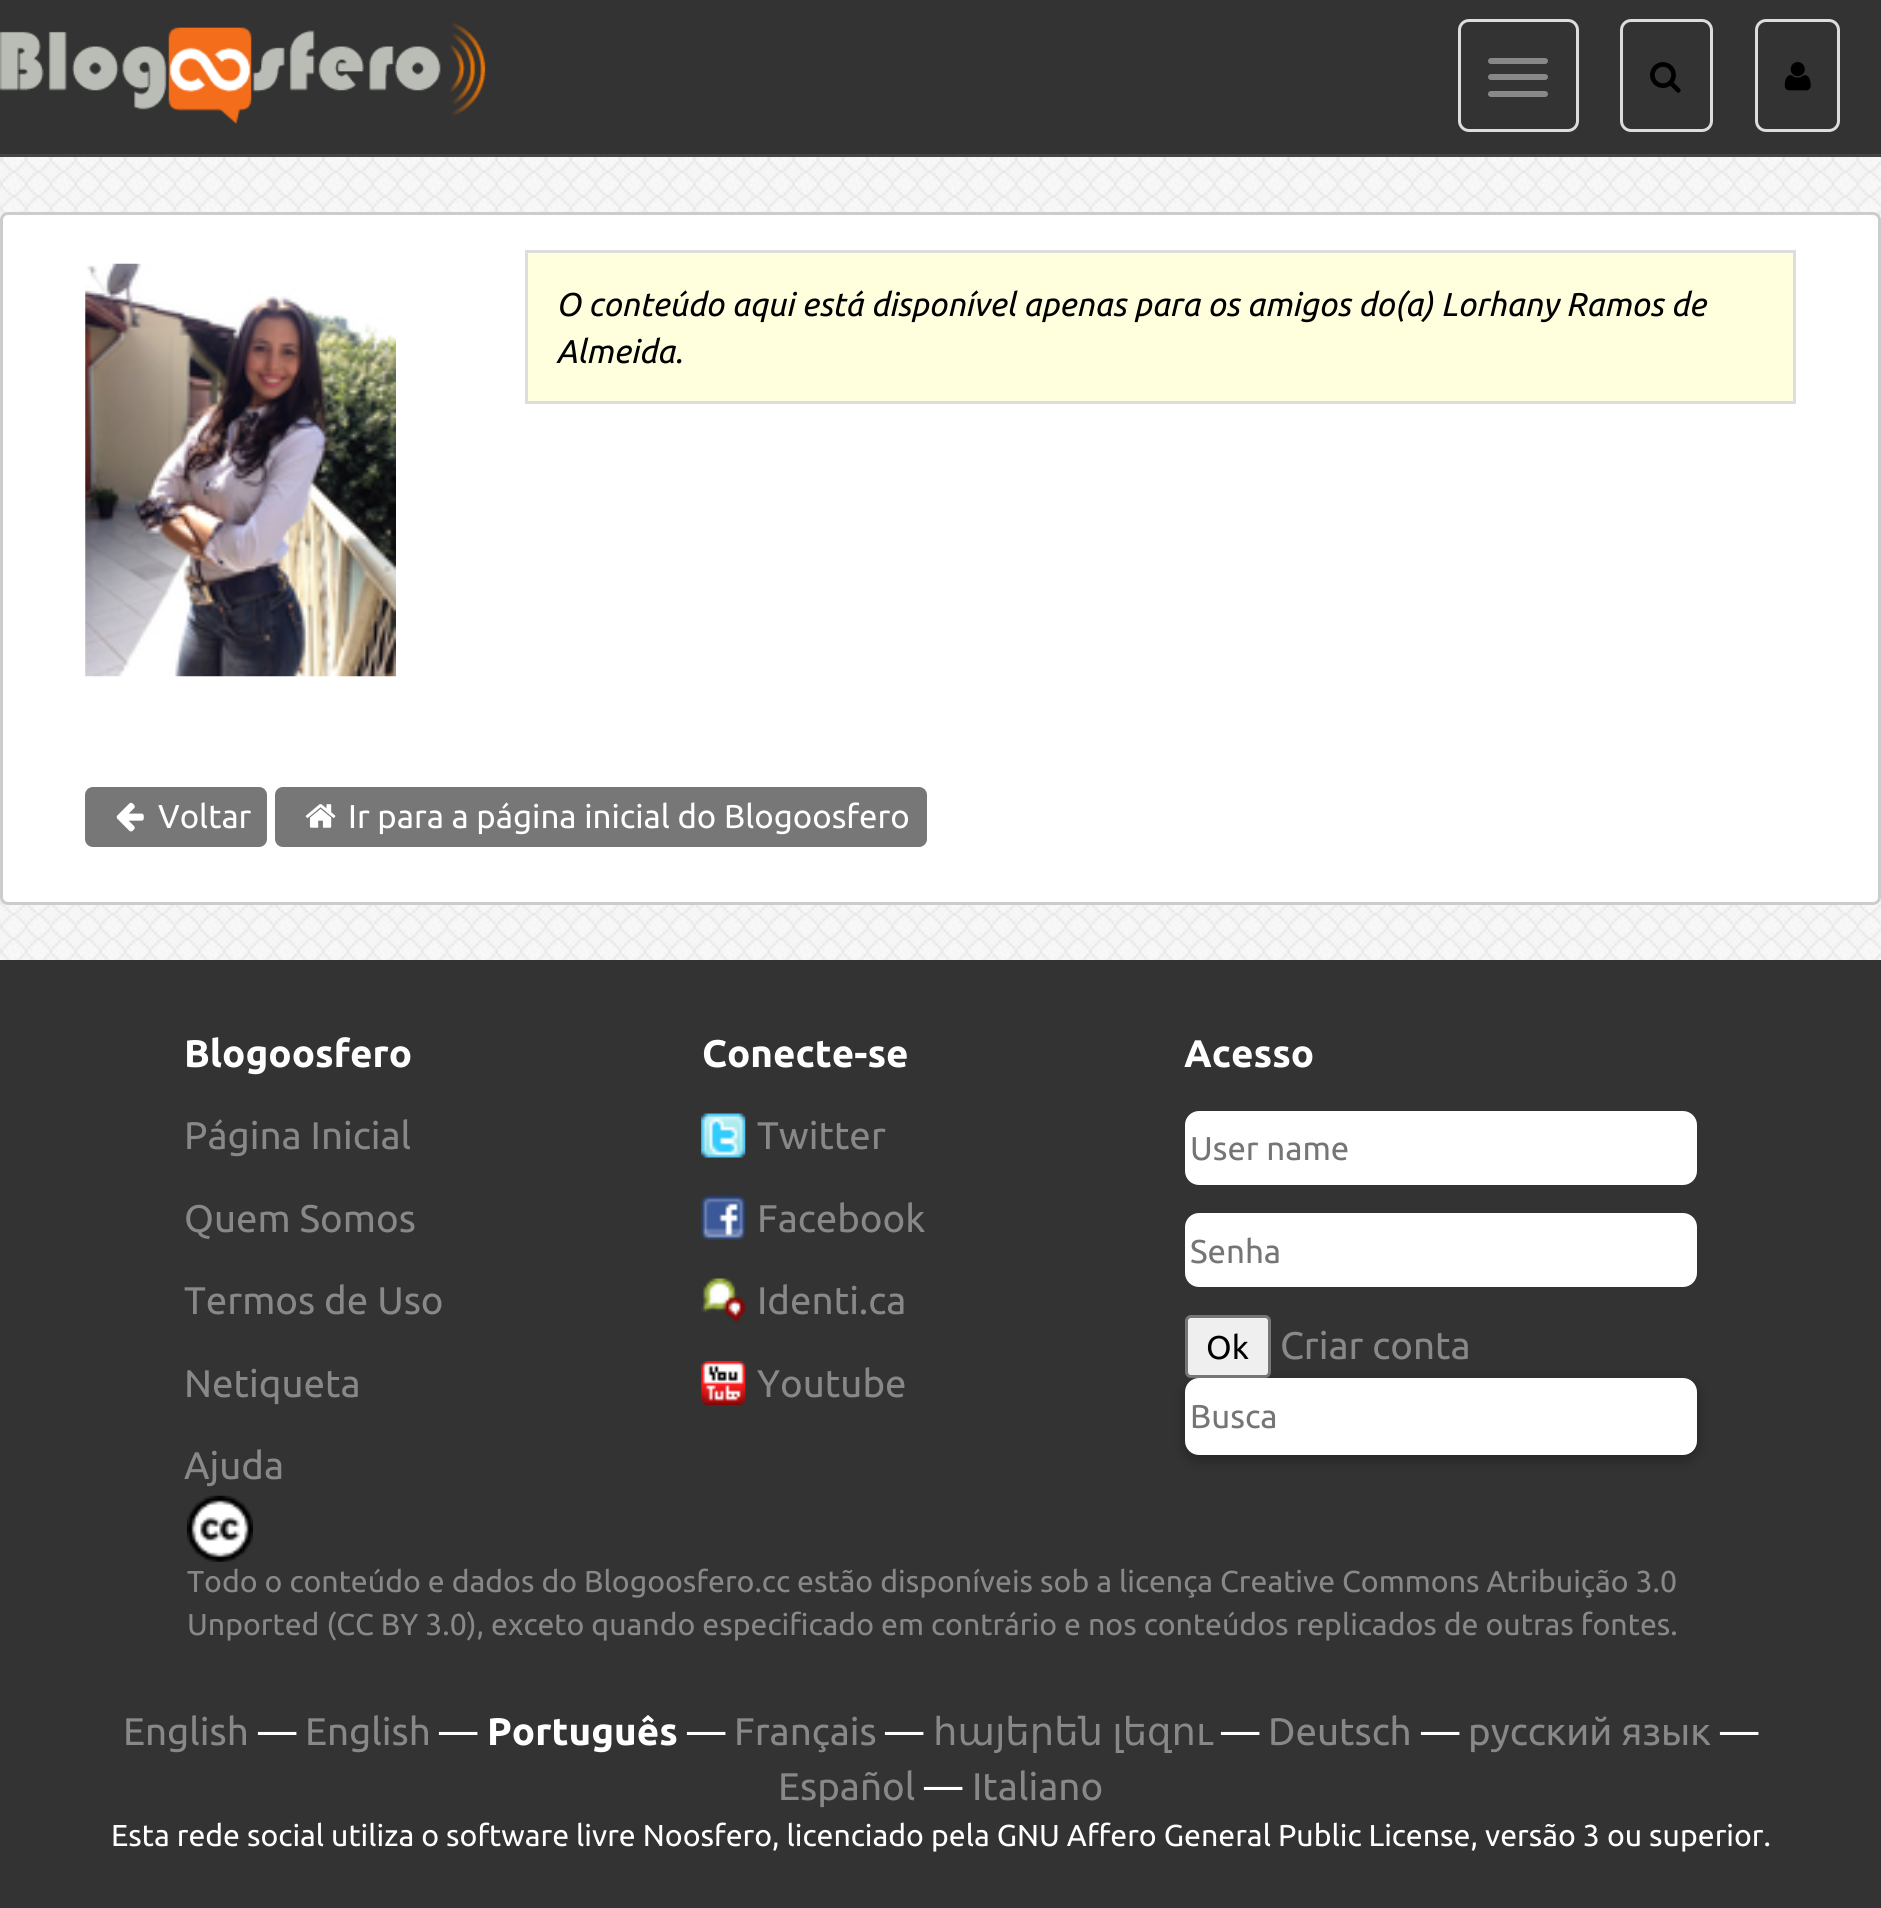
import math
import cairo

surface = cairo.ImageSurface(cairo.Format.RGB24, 1881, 1908)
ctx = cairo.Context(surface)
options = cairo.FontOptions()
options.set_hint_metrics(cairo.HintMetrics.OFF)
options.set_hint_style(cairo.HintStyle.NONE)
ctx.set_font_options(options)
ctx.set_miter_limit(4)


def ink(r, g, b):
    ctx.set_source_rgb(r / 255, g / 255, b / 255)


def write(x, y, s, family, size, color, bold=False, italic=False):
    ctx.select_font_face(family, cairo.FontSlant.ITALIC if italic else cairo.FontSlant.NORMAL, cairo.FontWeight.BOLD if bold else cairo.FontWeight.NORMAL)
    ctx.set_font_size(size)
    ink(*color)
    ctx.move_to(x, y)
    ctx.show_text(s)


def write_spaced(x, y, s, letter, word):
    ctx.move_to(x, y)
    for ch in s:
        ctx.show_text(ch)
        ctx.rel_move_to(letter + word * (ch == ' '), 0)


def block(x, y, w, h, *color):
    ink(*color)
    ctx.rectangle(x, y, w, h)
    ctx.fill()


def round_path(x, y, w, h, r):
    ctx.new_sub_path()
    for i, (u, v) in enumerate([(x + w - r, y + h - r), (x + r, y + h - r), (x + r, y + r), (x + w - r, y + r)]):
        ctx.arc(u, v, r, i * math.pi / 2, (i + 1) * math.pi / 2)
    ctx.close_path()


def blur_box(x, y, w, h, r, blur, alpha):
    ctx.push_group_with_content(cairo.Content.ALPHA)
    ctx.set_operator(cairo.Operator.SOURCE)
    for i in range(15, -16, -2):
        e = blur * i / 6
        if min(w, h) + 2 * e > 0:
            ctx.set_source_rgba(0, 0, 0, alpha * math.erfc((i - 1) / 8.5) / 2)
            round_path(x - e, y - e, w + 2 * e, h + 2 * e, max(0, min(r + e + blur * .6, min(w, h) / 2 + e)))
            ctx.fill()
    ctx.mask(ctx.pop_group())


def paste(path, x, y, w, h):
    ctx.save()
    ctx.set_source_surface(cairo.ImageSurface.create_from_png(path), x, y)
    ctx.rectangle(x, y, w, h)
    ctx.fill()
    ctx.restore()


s1 = dict(family="Ubuntu", size=33, color=(0, 0, 0), italic=True)
s2 = dict(family="Ubuntu", size=33, color=(255, 255, 255))
s3 = dict(family="Ubuntu", size=38.5, color=(255, 255, 255), bold=True)
s4 = dict(family="Ubuntu", size=38.5, color=(136, 136, 136))
s5 = dict(family="Ubuntu", size=33, color=(117, 117, 117))
s6 = dict(family="Ubuntu", size=33, color=(0, 0, 0))
s7 = dict(family="Ubuntu", size=30.25, color=(136, 136, 136))
s8 = dict(family="Ubuntu", size=38.5, color=(255, 255, 255))
s9 = dict(family="Ubuntu", size=30.25, color=(255, 255, 255))

ink(248, 248, 248)
ctx.paint()
paste("pic1.png", 0, 157, 1881, 803)
block(0, 0, 1881, 154, 51, 51, 51)
block(0, 154, 1881, 3, 68, 68, 68)
paste("pic2.png", 0, 22, 486, 102)
round_path(1459.5, 20.5, 118, 110, 9.5)
ink(221, 221, 221)
ctx.set_line_width(3)
ctx.stroke()
ink(136, 136, 136)
round_path(1488, 58, 60, 6, 3)
ctx.fill()
round_path(1488, 74, 60, 6, 3)
ctx.fill()
round_path(1488, 91, 60, 6, 3)
ctx.fill()
round_path(1621.5, 20.5, 90, 110, 9.5)
ink(221, 221, 221)
ctx.stroke()
paste("pic3.png", 1650, 62, 31, 31)
round_path(1756.5, 20.5, 82, 110, 9.5)
ctx.stroke()
paste("pic4.png", 1784, 62, 27, 29)
ink(255, 255, 255)
round_path(0, 212, 1881, 693, 8)
ctx.fill()
round_path(1.5, 213.5, 1878, 690, 6.5)
ctx.set_source_rgba(0, 0, 0, 0.2)
ctx.stroke()
paste("pic5.png", 85, 263, 311, 414)
ink(255, 255, 221)
ctx.rectangle(526.5, 251.5, 1268, 151)
ctx.fill_preserve()
ink(221, 221, 221)
ctx.stroke()
write(556, 316, "O conteúdo aqui está disponível apenas para os amigos do(a) Lorhany Ramos de", **s1)
write(556, 363, "Almeida.", **s1)
ink(119, 119, 119)
round_path(86.5, 788.5, 179, 57, 6.5)
ctx.fill_preserve()
ctx.stroke()
paste("pic6.png", 116, 802, 28, 30)
write(158, 828, "Voltar", **s2)
ink(119, 119, 119)
round_path(276.5, 788.5, 649, 57, 6.5)
ctx.fill_preserve()
ctx.stroke()
paste("pic7.png", 305, 804, 31, 24)
write(348, 828, "Ir para a página inicial do Blogoosfero", **s2)
block(0, 960, 1881, 948, 51, 51, 51)
write(184, 1067, "Blogoosfero", **s3)
write(184, 1149, "Página Inicial", **s4)
write(184, 1232, "Quem Somos", **s4)
write(184, 1314, "Termos de Uso", **s4)
write(184, 1397, "Netiqueta", **s4)
write(184, 1479, "Ajuda", **s4)
write(702, 1067, "Conecte-se", **s3)
paste("pic8.png", 701, 1113, 45, 45)
write(757, 1149, "Twitter", **s4)
paste("pic9.png", 701, 1196, 45, 44)
write(757, 1232, "Facebook", **s4)
paste("pic10.png", 701, 1278, 45, 45)
write(757, 1314, "Identi.ca", **s4)
paste("pic11.png", 701, 1361, 45, 44)
write(757, 1397, "Youtube", **s4)
write(1184, 1067, "Acesso", **s3)
round_path(1185, 1111, 512, 74, 14)
ctx.fill()
write(1190, 1160, "User name", **s5)
ink(255, 255, 255)
round_path(1185, 1213, 512, 74, 14)
ctx.fill()
write(1190, 1263, "Senha", **s5)
ink(0, 0, 0)
blur_box(1185, 1383, 512, 77, 14, 7, 0.3)
ink(239, 239, 239)
round_path(1186.5, 1316.5, 83, 60, 4.5)
ctx.fill_preserve()
ink(118, 118, 118)
ctx.stroke()
write(1206, 1359, "Ok", **s6)
write(1280, 1359, "Criar conta", **s4)
ink(255, 255, 255)
round_path(1185, 1378, 512, 77, 14)
ctx.fill()
write(1190, 1428, "Busca", **s5)
paste("pic12.png", 187, 1495, 66, 67)
write(187, 1592, "Todo o conteúdo e dados do Blogoosfero.cc estão disponíveis sob a licença Creative Commons Atribuição 3.0", **s7)
write(187, 1635, "Unported (CC BY 3.0), exceto quando especificado em contrário e nos conteúdos replicados de outras fontes.", **s7)
write(123, 1745, "English", **s4)
write(258, 1745, "—", **s8)
write(305, 1745, "English", **s4)
write(439, 1745, "—", **s8)
write(487, 1745, "Português", **s3)
write(687, 1745, "—", **s8)
write(734, 1745, "Français", **s4)
write(885, 1745, "—", **s8)
ctx.select_font_face("DejaVu Sans")
ink(136, 136, 136)
write_spaced(933, 1745, "հայերեն լեզու", 0, -3)
write(1221, 1745, "—", **s8)
write(1268, 1745, "Deutsch", **s4)
write(1421, 1745, "—", **s8)
write(1468, 1745, "русский язык", **s4)
write(1720, 1745, "—", **s8)
write(778, 1800, "Español", **s4)
write(924, 1800, "—", **s8)
write(972, 1800, "Italiano", **s4)
write(111, 1846, "Esta rede social utiliza o software livre Noosfero, licenciado pela GNU Affero General Public License, versão 3 ou superior.", **s9)
surface.write_to_png("screenshot.png")
